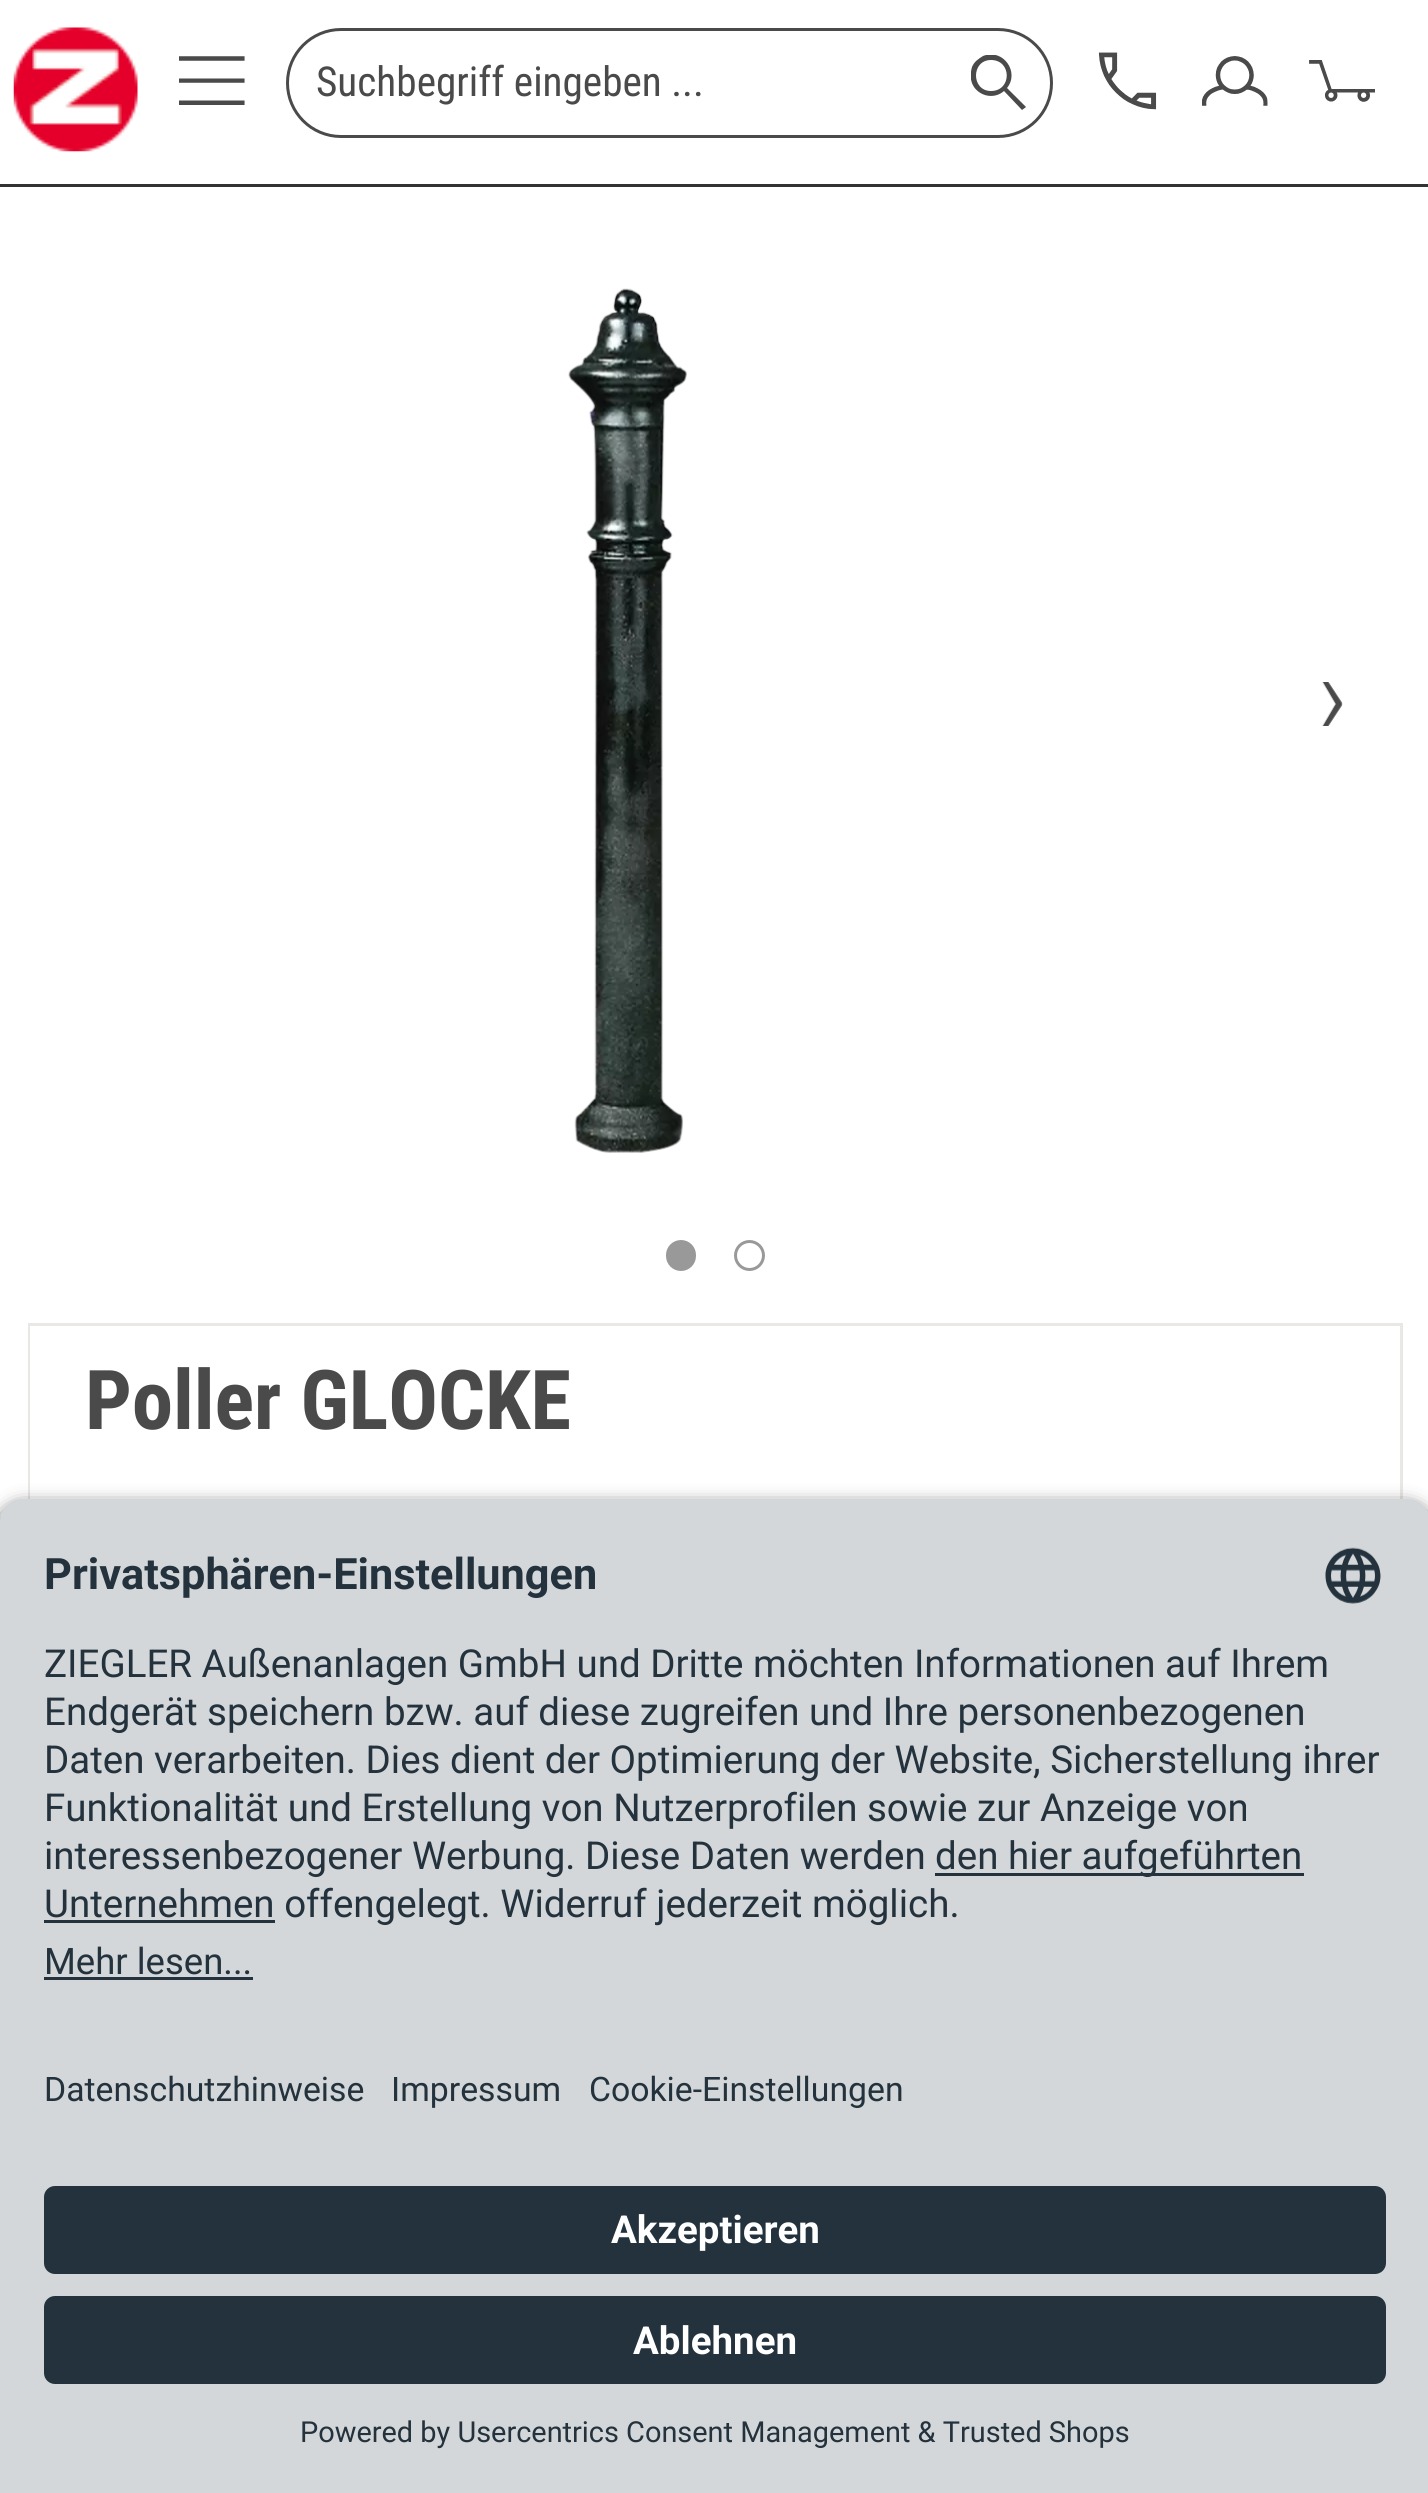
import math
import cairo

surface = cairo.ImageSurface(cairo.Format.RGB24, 1428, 2493)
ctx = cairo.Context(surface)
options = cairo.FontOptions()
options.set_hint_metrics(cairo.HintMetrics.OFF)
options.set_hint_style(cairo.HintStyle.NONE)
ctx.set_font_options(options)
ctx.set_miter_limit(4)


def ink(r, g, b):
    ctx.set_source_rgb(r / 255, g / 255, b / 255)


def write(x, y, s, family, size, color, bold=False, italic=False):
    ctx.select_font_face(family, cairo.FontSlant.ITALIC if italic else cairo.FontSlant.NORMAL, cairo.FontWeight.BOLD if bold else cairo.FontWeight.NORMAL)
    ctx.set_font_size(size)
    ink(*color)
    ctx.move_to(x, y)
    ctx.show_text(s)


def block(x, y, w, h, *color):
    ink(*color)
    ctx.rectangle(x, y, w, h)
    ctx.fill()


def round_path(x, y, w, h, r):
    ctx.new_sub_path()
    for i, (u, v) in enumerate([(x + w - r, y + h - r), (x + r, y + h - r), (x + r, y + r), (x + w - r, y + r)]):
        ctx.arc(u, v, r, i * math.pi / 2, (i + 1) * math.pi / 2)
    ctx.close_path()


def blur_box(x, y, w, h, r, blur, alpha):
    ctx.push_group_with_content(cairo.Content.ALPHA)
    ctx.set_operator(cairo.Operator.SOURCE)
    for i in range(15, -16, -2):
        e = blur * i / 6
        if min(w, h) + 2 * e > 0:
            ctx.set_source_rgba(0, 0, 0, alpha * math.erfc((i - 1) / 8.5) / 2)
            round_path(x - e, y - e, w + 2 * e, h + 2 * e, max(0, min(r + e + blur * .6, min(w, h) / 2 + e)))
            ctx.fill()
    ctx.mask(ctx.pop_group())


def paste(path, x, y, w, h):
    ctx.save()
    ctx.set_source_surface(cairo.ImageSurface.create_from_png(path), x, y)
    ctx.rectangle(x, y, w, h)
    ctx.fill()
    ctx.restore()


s1 = dict(family="Roboto Condensed", size=41.25, color=(74, 74, 74))
s2 = dict(family="Roboto Condensed", size=82.5, color=(74, 74, 74), bold=True)
s3 = dict(family="Roboto", size=43.25, color=(35, 50, 60), bold=True)
s4 = dict(family="Roboto", size=38.5, color=(35, 50, 60))
s5 = dict(family="Roboto", size=36.5, color=(35, 50, 60))
s6 = dict(family="Roboto", size=33.75, color=(35, 50, 60))
s7 = dict(family="Roboto", size=38.5, color=(255, 255, 255), bold=True)
s8 = dict(family="Roboto", size=28.9, color=(35, 50, 60))

ink(255, 255, 255)
ctx.paint()
block(0, 184, 1428, 3, 51, 51, 51)
paste("pic1.png", 13, 27, 125, 125)
paste("pic2.png", 179, 56, 66, 49)
round_path(287.5, 29.5, 764, 107, 53.5)
ink(74, 74, 74)
ctx.set_line_width(3)
ctx.stroke()
write(316, 96, "Suchbegriff eingeben ...", **s1)
ctx.save()
ctx.rectangle(971, 55, 55, 55)
ctx.clip()
ctx.new_path()
ctx.move_to(1026, 107)
ctx.line_to(1007, 88)
ctx.curve_to(1020, 72, 1003, 48, 983, 56)
ctx.curve_to(978, 59, 974, 62, 972, 67)
ctx.curve_to(970, 74, 970, 81, 974, 87)
ctx.curve_to(981, 97, 995, 99, 1004, 91)
ctx.line_to(1022, 110)
ctx.close_path()
ctx.move_to(991, 91)
ctx.curve_to(971, 91, 971, 60, 991, 60)
ctx.curve_to(1012, 60, 1012, 91, 991, 91)
ctx.close_path()
ctx.fill()
ctx.restore()
paste("pic3.png", 1098, 52, 59, 58)
paste("pic4.png", 1202, 56, 66, 50)
paste("pic5.png", 1309, 60, 66, 42)
paste("pic6.png", 568, 288, 120, 865)
paste("pic7.png", 1322, 682, 21, 44)
ink(153, 153, 153)
round_path(667.5, 1241.5, 27, 28, 13.5)
ctx.fill_preserve()
ctx.stroke()
ctx.arc(749.5, 1255.5, 14, 0, 2 * math.pi)
ctx.stroke()
ctx.rectangle(29.5, 1324.5, 1372, 1003)
ink(233, 232, 228)
ctx.stroke()
block(30, 1326, 1, 173, 255, 255, 255)
write(85, 1429, "Poller GLOCKE", **s2)
ink(0, 0, 0)
blur_box(0, 1507, 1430, 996, 22, 9.5, 0.8)
ink(211, 215, 217)
ctx.new_path()
ctx.move_to(22, 1499)
ctx.line_to(1408, 1499)
ctx.curve_to(1420, 1499, 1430, 1509, 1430, 1521)
ctx.line_to(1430, 2027)
ctx.line_to(0, 2027)
ctx.line_to(0, 1521)
ctx.curve_to(0, 1509, 10, 1499, 22, 1499)
ctx.close_path()
ctx.fill()
write(44, 1589, "Privatsphären-Einstellungen", **s3)
paste("pic8.png", 1325, 1547, 56, 57)
write(44, 1677, "ZIEGLER Außenanlagen GmbH und Dritte möchten Informationen auf Ihrem", **s4)
write(44, 1725, "Endgerät speichern bzw. auf diese zugreifen und Ihre personenbezogenen", **s4)
write(44, 1773, "Daten verarbeiten. Dies dient der Optimierung der Website, Sicherstellung ihrer", **s4)
write(44, 1821, "Funktionalität und Erstellung von Nutzerprofilen sowie zur Anzeige von", **s4)
write(44, 1869, "interessenbezogener Werbung. Diese Daten werden", **s4)
block(935, 1873, 369, 3, 35, 50, 60)
write(935, 1869, "den hier aufgeführten", **s4)
block(44, 1920, 231, 3, 35, 50, 60)
write(44, 1917, "Unternehmen offengelegt. Widerruf jederzeit möglich.", **s4)
write(44, 1974, "Mehr lesen...", **s5)
block(44, 1977, 209, 3, 35, 50, 60)
block(0, 2027, 1428, 466, 211, 215, 217)
write(44, 2101, "Datenschutzhinweise", **s6)
write(391, 2101, "Impressum", **s6)
write(589, 2101, "Cookie-Einstellungen", **s6)
round_path(44, 2186, 1342, 88, 11)
ctx.fill()
write(611, 2243, "Akzeptieren", **s7)
ink(35, 50, 60)
round_path(44, 2296, 1342, 88, 11)
ctx.fill()
write(633, 2354, "Ablehnen", **s7)
write(300, 2442, "Powered by Usercentrics Consent Management & Trusted Shops", **s8)
surface.write_to_png("screenshot.png")
